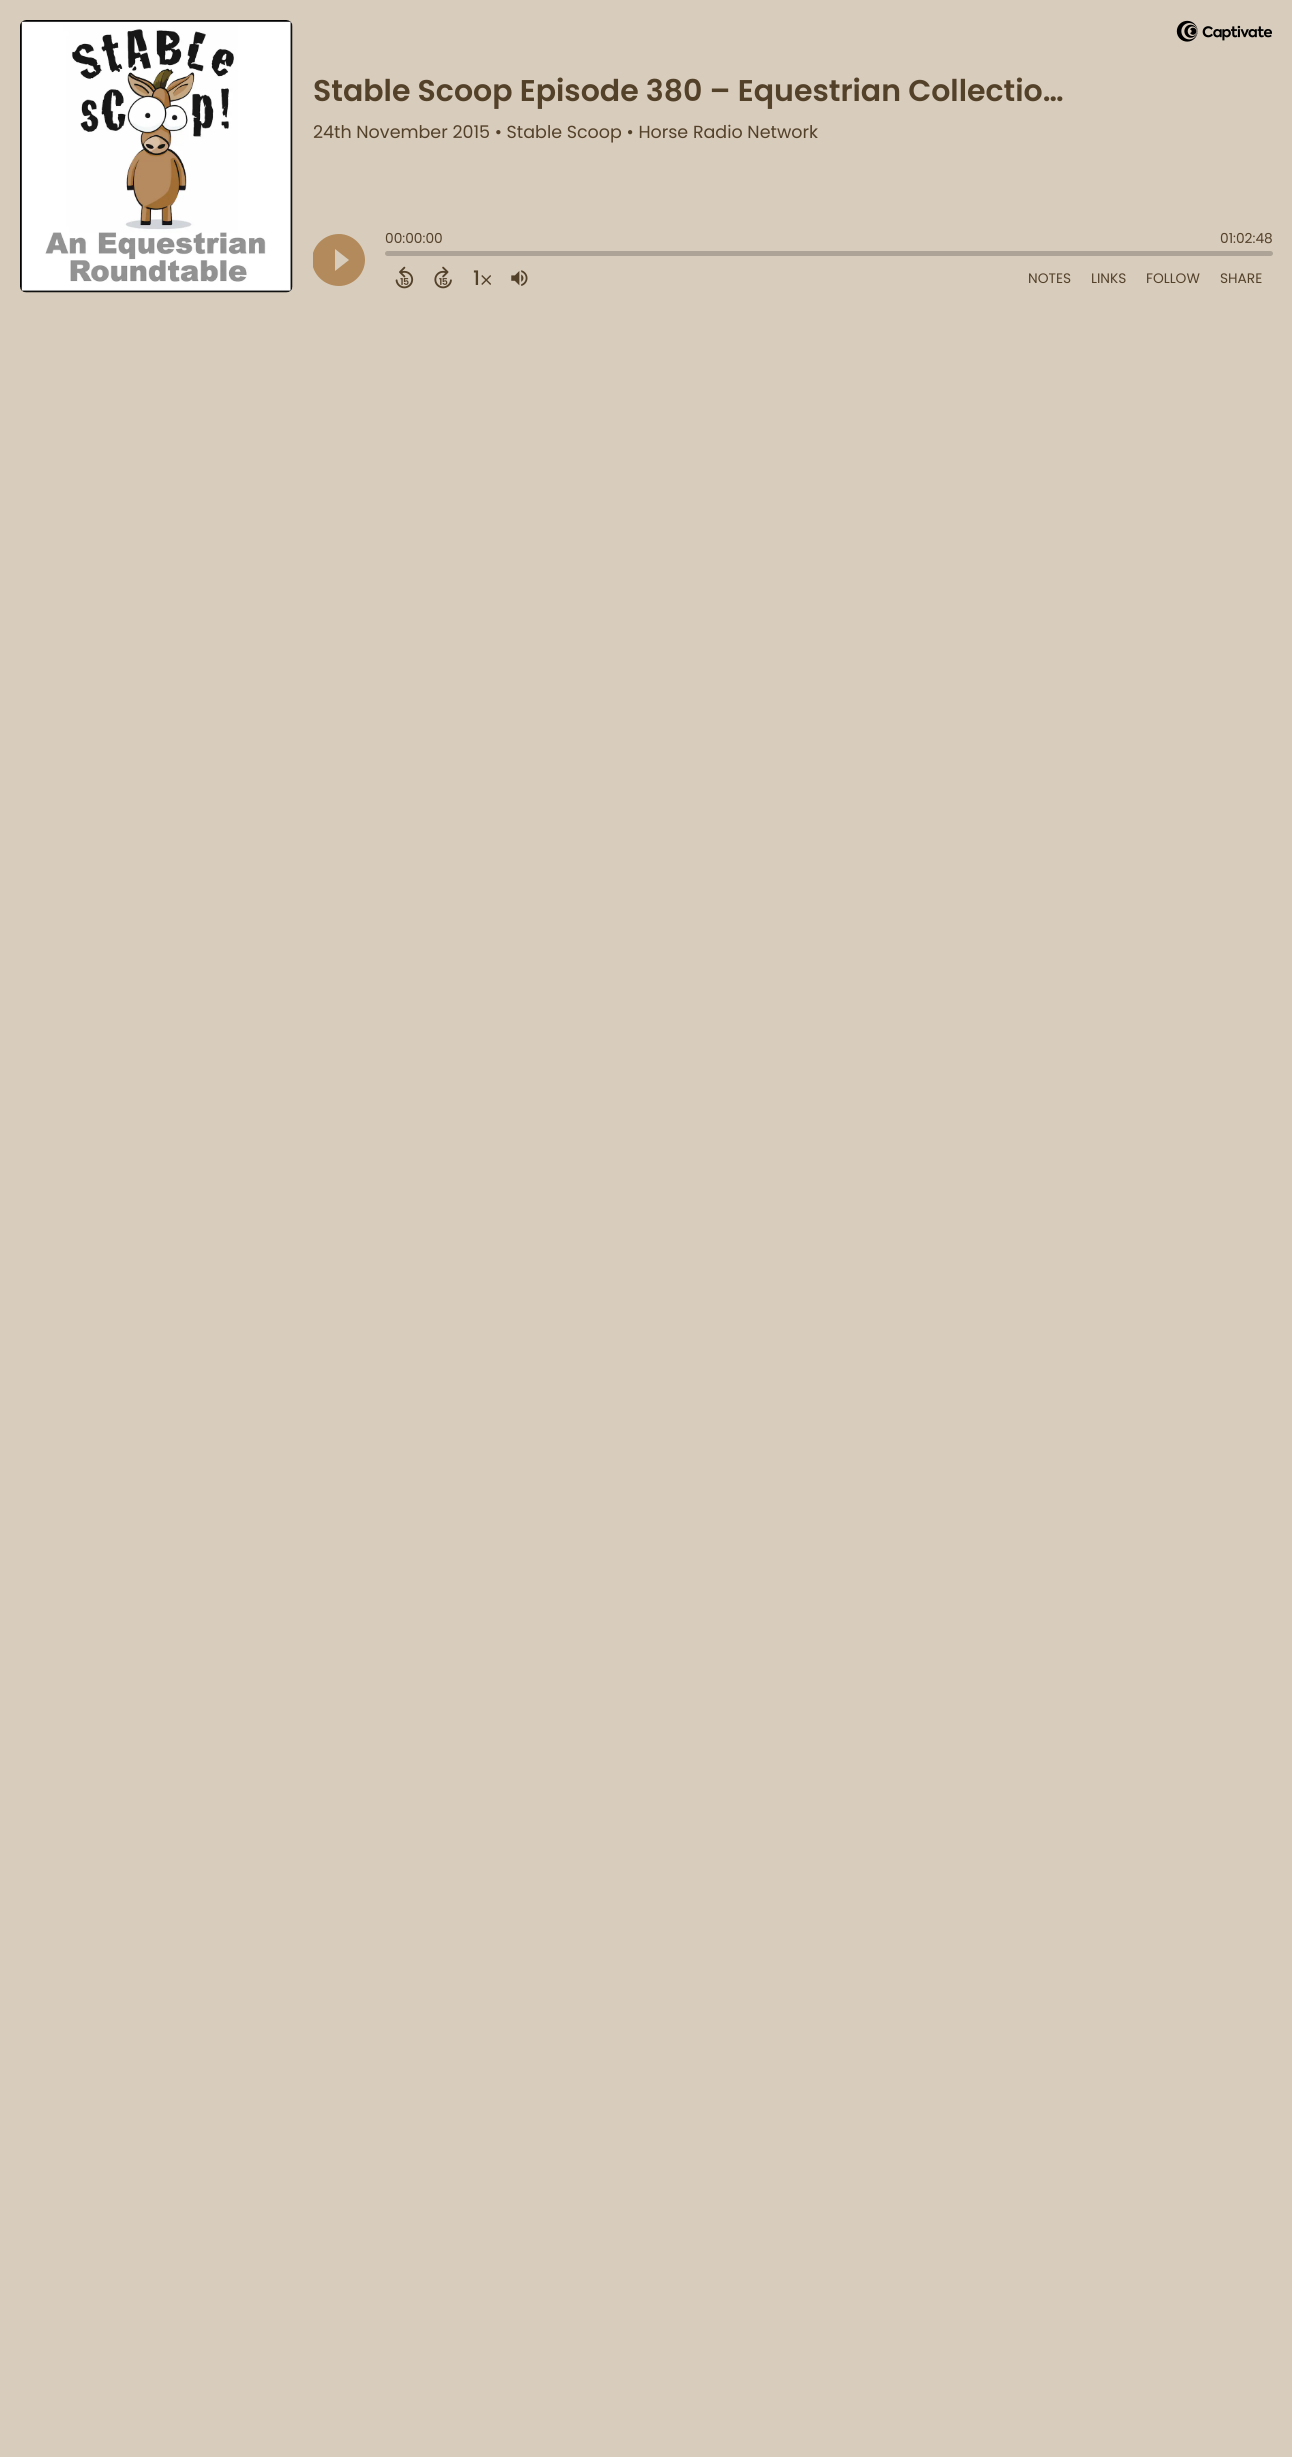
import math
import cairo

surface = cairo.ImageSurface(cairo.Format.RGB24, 1292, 2457)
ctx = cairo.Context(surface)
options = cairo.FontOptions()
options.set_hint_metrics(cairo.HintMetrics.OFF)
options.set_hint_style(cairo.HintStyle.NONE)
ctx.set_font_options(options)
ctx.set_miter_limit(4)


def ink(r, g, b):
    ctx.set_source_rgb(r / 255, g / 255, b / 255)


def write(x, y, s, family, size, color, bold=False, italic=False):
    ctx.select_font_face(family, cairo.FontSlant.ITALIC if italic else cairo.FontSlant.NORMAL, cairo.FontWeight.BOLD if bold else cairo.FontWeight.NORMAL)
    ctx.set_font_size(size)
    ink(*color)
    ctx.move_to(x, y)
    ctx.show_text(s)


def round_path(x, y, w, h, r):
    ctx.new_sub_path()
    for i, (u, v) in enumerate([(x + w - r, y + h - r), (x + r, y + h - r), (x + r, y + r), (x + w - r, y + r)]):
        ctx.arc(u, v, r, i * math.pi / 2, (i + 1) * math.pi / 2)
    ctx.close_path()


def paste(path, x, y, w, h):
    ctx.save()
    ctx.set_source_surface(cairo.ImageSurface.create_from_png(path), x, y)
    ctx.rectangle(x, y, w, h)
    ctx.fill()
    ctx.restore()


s1 = dict(family="Poppins SemiBold", size=30, color=(84, 65, 42))
s2 = dict(family="Poppins", size=17.5, color=(84, 65, 42))
s3 = dict(family="Poppins", size=13.75, color=(84, 65, 42))
s4 = dict(family="Poppins Medium", size=20, color=(84, 65, 42))

ink(216, 204, 188)
ctx.paint()
paste("pic1.png", 20, 20, 273, 273)
paste("pic2.png", 1176, 20, 96, 22)
write(313, 101, "Stable Scoop Episode 380 – Equestrian Collectio…", **s1)
write(313, 138, "24th November 2015 • Stable Scoop • Horse Radio Network", **s2)
ctx.save()
ctx.rectangle(313, 234, 52, 52)
ctx.clip()
ink(178, 138, 91)
ctx.set_fill_rule(cairo.FillRule.EVEN_ODD)
ctx.new_path()
ctx.move_to(339, 286)
ctx.curve_to(353, 286, 365, 274, 365, 260)
ctx.curve_to(365, 246, 353, 234, 339, 234)
ctx.curve_to(324, 234, 312, 246, 312, 260)
ctx.curve_to(312, 274, 324, 286, 339, 286)
ctx.close_path()
ctx.move_to(335, 271)
ctx.line_to(349, 260)
ctx.line_to(335, 249)
ctx.close_path()
ctx.fill()
ctx.restore()
write(385, 243, "00:00:00", **s3)
write(1220, 243, "01:02:48", **s3)
ink(173, 164, 151)
round_path(385, 251, 888, 5, 2.5)
ctx.fill()
paste("pic3.png", 395, 266, 19, 23)
paste("pic4.png", 434, 266, 18, 23)
write(473, 285, "1", **s4)
paste("pic5.png", 481, 275, 10, 10)
paste("pic6.png", 511, 270, 17, 16)
write(1028, 283, "NOTES", **s3)
write(1091, 283, "LINKS", **s3)
write(1146, 283, "FOLLOW", **s3)
write(1220, 283, "SHARE", **s3)
surface.write_to_png("screenshot.png")
